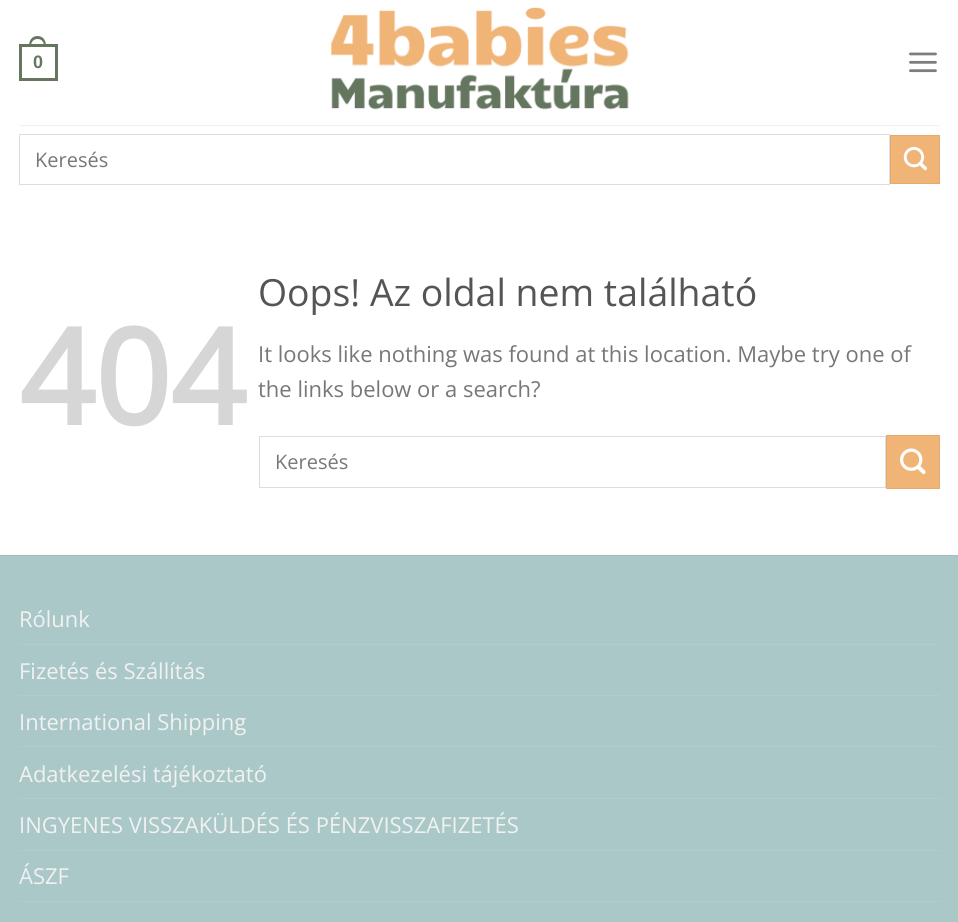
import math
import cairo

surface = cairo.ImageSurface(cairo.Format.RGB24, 958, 922)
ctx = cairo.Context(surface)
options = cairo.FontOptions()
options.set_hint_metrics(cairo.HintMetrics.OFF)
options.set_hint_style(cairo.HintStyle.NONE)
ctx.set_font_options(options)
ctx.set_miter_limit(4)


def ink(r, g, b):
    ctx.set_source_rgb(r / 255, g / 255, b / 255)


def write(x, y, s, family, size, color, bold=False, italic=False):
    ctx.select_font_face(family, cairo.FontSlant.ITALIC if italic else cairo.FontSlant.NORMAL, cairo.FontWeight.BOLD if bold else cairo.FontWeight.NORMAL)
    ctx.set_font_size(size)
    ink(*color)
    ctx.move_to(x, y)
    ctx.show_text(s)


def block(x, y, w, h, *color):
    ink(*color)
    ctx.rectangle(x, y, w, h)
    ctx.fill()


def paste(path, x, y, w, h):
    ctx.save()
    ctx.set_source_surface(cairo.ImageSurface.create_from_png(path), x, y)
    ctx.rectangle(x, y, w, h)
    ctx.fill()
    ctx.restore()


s1 = dict(family="Liberation Sans", size=18, color=(101, 118, 95), bold=True)
s2 = dict(family="Open Sans", size=20, color=(119, 119, 119))
s3 = dict(family="Open Sans", size=132, color=(214, 214, 214), bold=True)
s4 = dict(family="Open Sans", size=37.4, color=(85, 85, 85))
s5 = dict(family="Open Sans", size=22, color=(119, 119, 119))
s6 = dict(family="Open Sans", size=22, color=(241, 241, 241))

ink(255, 255, 255)
ctx.paint()
ctx.rectangle(20.5, 45.5, 36, 34)
ink(101, 118, 95)
ctx.set_line_width(3)
ctx.stroke()
ctx.set_fill_rule(cairo.FillRule.EVEN_ODD)
ctx.new_path()
ctx.move_to(37.5, 36)
ctx.curve_to(43.5, 36, 46, 41, 46, 46)
ctx.line_to(29, 46)
ctx.curve_to(29, 41, 31.5, 36, 37.5, 36)
ctx.close_path()
ctx.move_to(37.5, 39)
ctx.curve_to(42, 39, 44, 42.5, 44, 46)
ctx.line_to(31, 46)
ctx.curve_to(31, 42.5, 33, 39, 37.5, 39)
ctx.close_path()
ctx.fill()
write(33, 68, "0", **s1)
paste("pic1.png", 330, 7, 299, 103)
paste("pic2.png", 909, 52, 28, 21)
block(19, 125, 921, 1, 241, 241, 241)
ctx.rectangle(19.5, 134.5, 870, 50)
ink(221, 221, 221)
ctx.set_line_width(1)
ctx.stroke()
write(35, 167, "Keresés", **s2)
ink(240, 180, 118)
ctx.rectangle(890.5, 135.5, 49, 48)
ctx.fill_preserve()
ink(228, 171, 112)
ctx.stroke()
paste("pic3.png", 903, 146, 24, 25)
write(19, 425, "404", **s3)
write(258, 306, "Oops! Az oldal nem található", **s4)
write(258, 362, "It looks like nothing was found at this location. Maybe try one of", **s5)
write(258, 397, "the links below or a search?", **s5)
ctx.rectangle(259.5, 436.5, 626, 51)
ink(221, 221, 221)
ctx.stroke()
write(275, 469, "Keresés", **s2)
ink(240, 180, 118)
ctx.rectangle(886.5, 435.5, 53, 53)
ctx.fill_preserve()
ink(228, 171, 112)
ctx.stroke()
paste("pic4.png", 900, 448, 26, 27)
block(0, 556, 958, 366, 171, 200, 201)
block(0, 555, 958, 1, 162, 190, 191)
write(19, 627, "Rólunk", **s6)
block(19, 644, 921, 1, 178, 204, 205)
write(19, 679, "Fizetés és Szállítás", **s6)
block(19, 695, 921, 1, 178, 204, 205)
write(19, 730, "International Shipping", **s6)
block(19, 746, 921, 1, 178, 204, 205)
write(19, 782, "Adatkezelési tájékoztató", **s6)
block(19, 798, 921, 1, 178, 204, 205)
write(19, 833, "INGYENES VISSZAKÜLDÉS ÉS PÉNZVISSZAFIZETÉS", **s6)
block(19, 850, 921, 1, 178, 204, 205)
write(19, 884, "ÁSZF", **s6)
block(19, 901, 921, 1, 178, 204, 205)
surface.write_to_png("screenshot.png")
